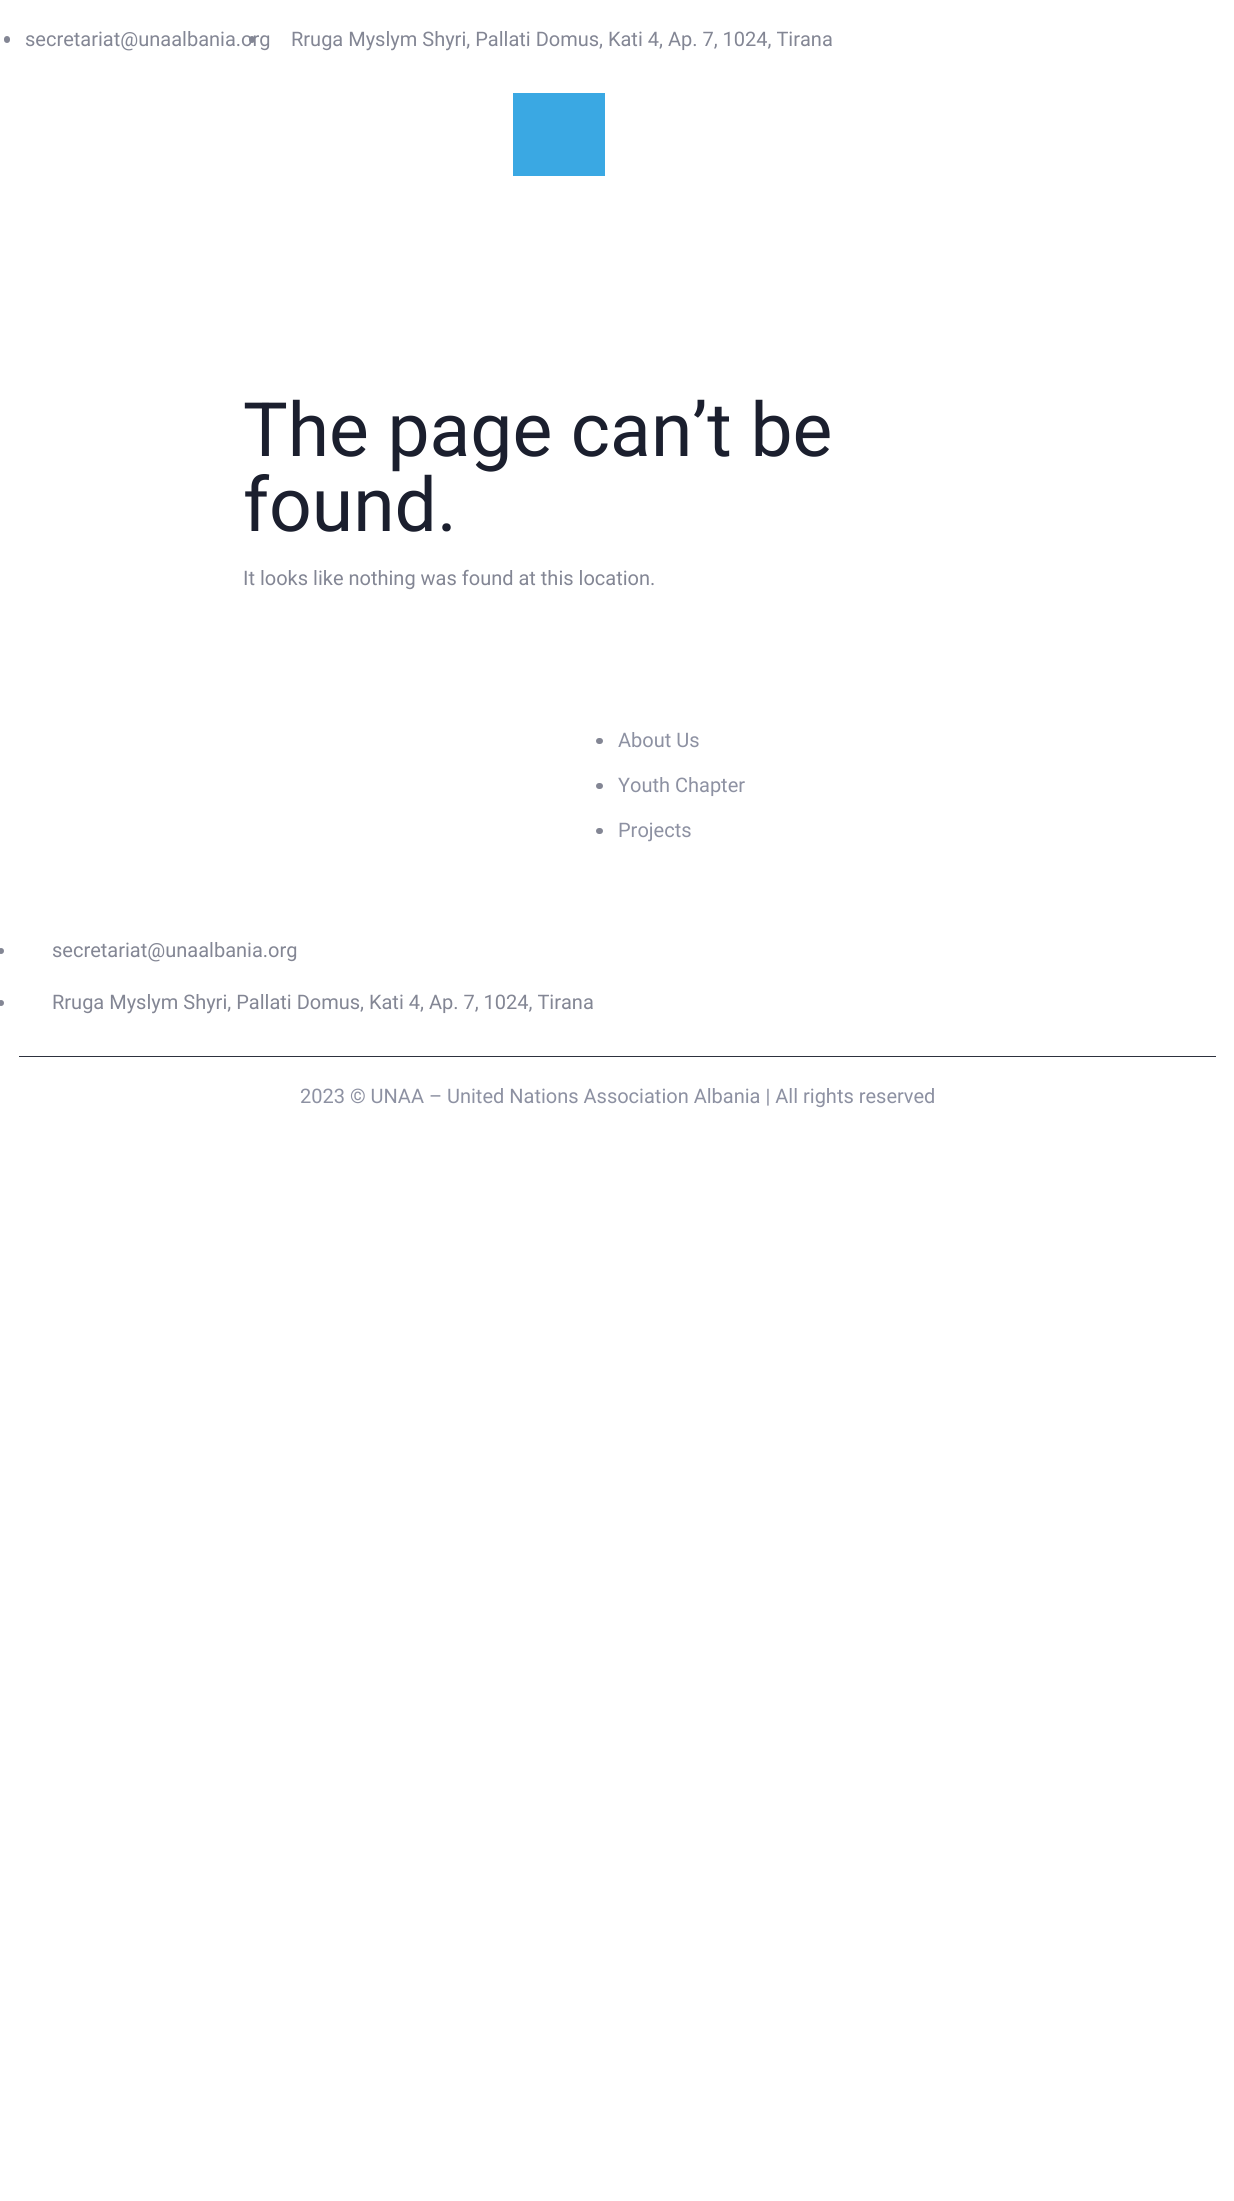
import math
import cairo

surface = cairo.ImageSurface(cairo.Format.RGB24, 1234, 2201)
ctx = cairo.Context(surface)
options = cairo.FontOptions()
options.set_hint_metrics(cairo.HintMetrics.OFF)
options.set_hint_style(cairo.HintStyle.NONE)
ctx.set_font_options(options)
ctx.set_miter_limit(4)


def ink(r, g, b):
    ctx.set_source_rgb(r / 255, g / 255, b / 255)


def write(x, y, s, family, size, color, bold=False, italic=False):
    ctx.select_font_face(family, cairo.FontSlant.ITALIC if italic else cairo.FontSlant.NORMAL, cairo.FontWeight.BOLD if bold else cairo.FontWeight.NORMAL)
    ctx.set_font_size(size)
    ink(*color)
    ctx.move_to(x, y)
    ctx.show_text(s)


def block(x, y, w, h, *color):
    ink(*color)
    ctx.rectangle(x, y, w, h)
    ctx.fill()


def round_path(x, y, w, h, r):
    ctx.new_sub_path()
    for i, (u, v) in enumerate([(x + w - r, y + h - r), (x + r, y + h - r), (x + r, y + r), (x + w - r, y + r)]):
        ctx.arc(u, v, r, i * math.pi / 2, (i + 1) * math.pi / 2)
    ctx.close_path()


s1 = dict(family="Roboto", size=20, color=(131, 134, 148))
s2 = dict(family="Roboto", size=75, color=(27, 31, 46))
s3 = dict(family="Roboto", size=20, color=(141, 145, 162))

ink(255, 255, 255)
ctx.paint()
ink(131, 134, 148)
round_path(4, 36, 6, 7, 3)
ctx.fill()
write(25, 46, "secretariat@unaalbania.org", **s1)
round_path(249, 36, 6, 7, 3)
ctx.fill()
write(291, 46, "Rruga Myslym Shyri, Pallati Domus, Kati 4, Ap. 7, 1024, Tirana", **s1)
block(513, 93, 92, 83, 58, 168, 227)
write(243, 456, "The page can’t be", **s2)
write(243, 531, "found.", **s2)
write(243, 585, "It looks like nothing was found at this location.", **s1)
round_path(596, 738, 7, 6, 3)
ctx.fill()
write(618, 747, "About Us", **s3)
ink(131, 134, 148)
round_path(596, 783, 7, 6, 3)
ctx.fill()
write(618, 792, "Youth Chapter", **s3)
ink(131, 134, 148)
round_path(596, 828, 7, 6, 3)
ctx.fill()
write(618, 837, "Projects", **s3)
ink(131, 134, 148)
ctx.new_path()
ctx.arc(1, 951, 3, 0, 2 * math.pi)
ctx.fill()
write(52, 957, "secretariat@unaalbania.org", **s1)
ctx.new_path()
ctx.arc(1, 1003, 3, 0, 2 * math.pi)
ctx.fill()
write(52, 1009, "Rruga Myslym Shyri, Pallati Domus, Kati 4, Ap. 7, 1024, Tirana", **s1)
block(19, 1056, 1197, 1, 45, 49, 62)
write(300, 1103, "2023 © UNAA – United Nations Association Albania | All rights reserved", **s3)
surface.write_to_png("screenshot.png")
